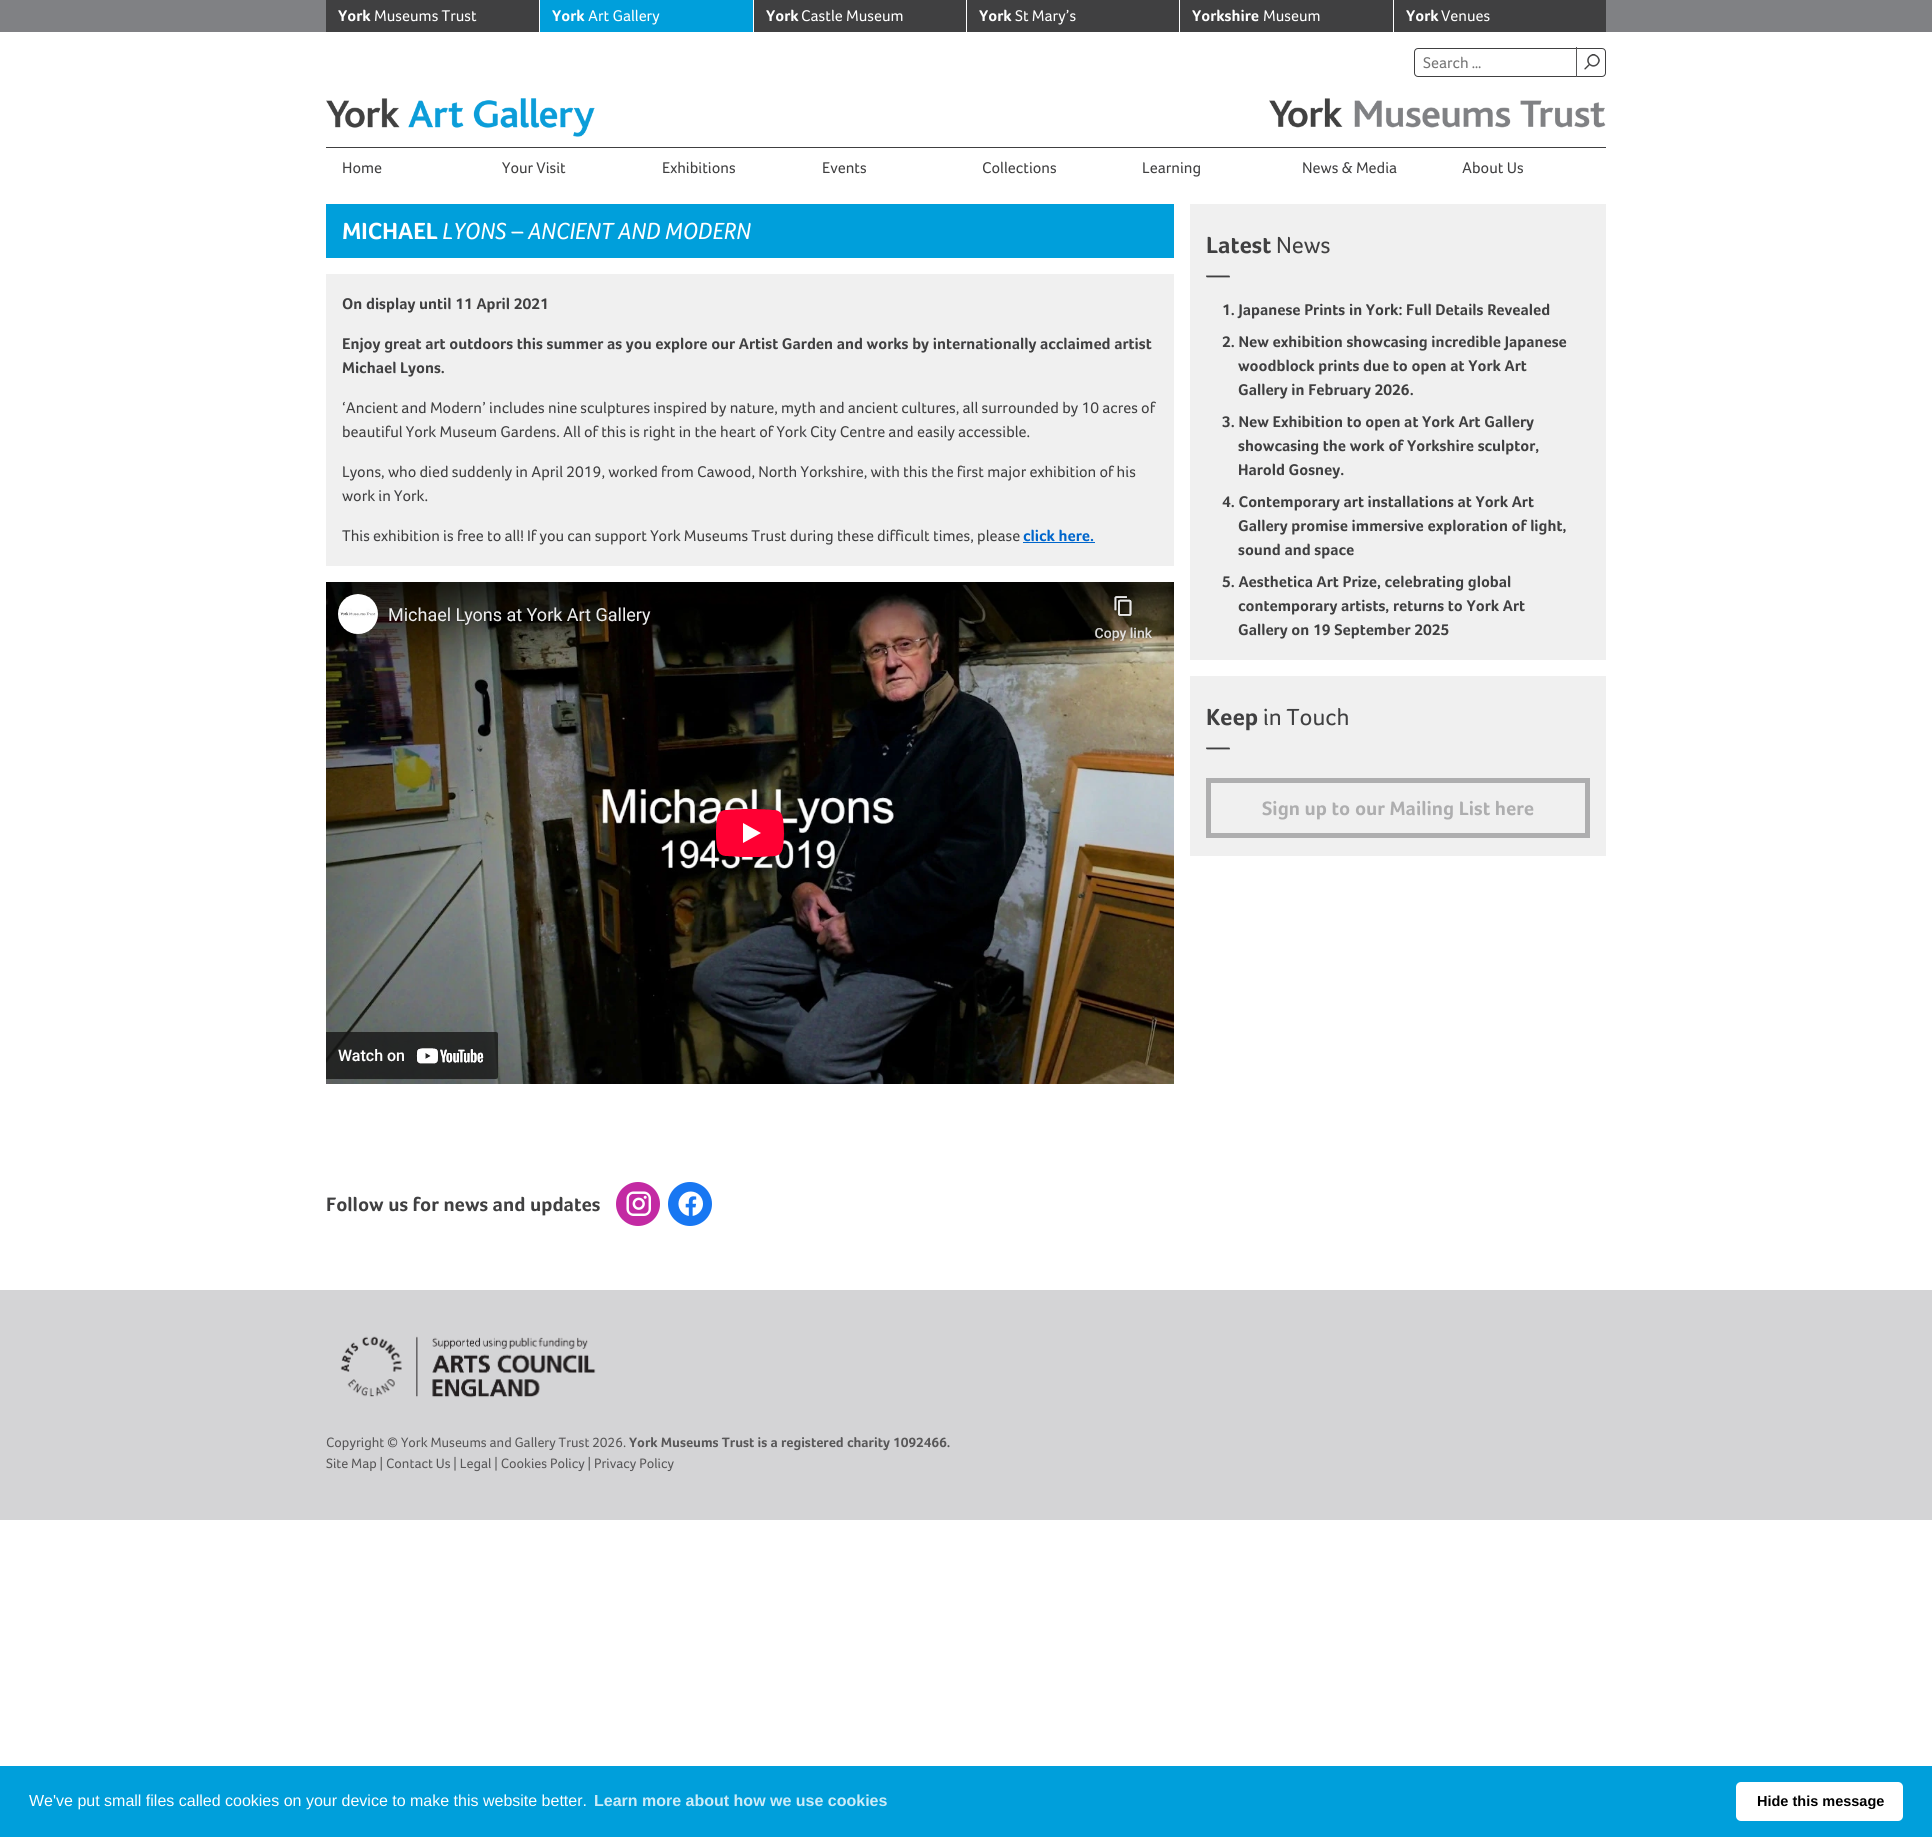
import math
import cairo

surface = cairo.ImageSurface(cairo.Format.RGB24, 1932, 1837)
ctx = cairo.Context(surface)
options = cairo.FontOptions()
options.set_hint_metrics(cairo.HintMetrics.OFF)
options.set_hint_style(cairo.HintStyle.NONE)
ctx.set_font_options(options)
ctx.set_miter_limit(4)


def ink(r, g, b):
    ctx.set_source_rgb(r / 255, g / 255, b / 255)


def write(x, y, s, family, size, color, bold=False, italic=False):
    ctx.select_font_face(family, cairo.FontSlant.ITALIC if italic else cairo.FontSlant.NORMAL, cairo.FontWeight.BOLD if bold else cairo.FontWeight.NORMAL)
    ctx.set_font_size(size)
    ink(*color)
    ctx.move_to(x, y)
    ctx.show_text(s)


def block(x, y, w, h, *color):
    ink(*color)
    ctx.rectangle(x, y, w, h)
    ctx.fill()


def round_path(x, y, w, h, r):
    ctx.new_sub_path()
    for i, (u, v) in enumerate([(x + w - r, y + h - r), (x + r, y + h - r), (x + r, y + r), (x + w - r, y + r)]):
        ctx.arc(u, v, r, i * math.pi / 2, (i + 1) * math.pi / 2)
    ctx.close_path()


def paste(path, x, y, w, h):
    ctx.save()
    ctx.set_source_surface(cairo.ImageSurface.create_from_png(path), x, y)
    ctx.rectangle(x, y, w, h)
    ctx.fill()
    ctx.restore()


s1 = dict(family="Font", size=16, color=(255, 255, 255), bold=True)
s2 = dict(family="Font", size=16, color=(255, 255, 255))
s3 = dict(family="Font", size=16, color=(117, 117, 117))
s4 = dict(family="Font", size=16, color=(64, 64, 65))
s5 = dict(family="Font", size=24, color=(255, 255, 255), bold=True)
s6 = dict(family="Font", size=24, color=(255, 255, 255), italic=True)
s7 = dict(family="Font", size=16, color=(64, 64, 65), bold=True)
s8 = dict(family="Font", size=16, color=(0, 102, 204), bold=True)
s9 = dict(family="Font", size=20, color=(64, 64, 65), bold=True)
s10 = dict(family="Font", size=24, color=(64, 64, 65), bold=True)
s11 = dict(family="Font", size=24, color=(64, 64, 65))
s12 = dict(family="Font", size=20, color=(174, 174, 175), bold=True)
s13 = dict(family="Font", size=14, color=(88, 87, 88))
s14 = dict(family="Font", size=14, color=(88, 87, 88), bold=True)
s15 = dict(family="Liberation Sans", size=16, color=(255, 255, 255))
s16 = dict(family="Liberation Sans", size=16, color=(204, 236, 248), bold=True)
s17 = dict(family="Liberation Sans", size=14.5, color=(0, 0, 0), bold=True)

ink(255, 255, 255)
ctx.paint()
block(0, 0, 1932, 32, 128, 129, 132)
block(326, 0, 213, 32, 64, 64, 65)
write(338, 21, "York", **s1)
write(374, 21, "Museums Trust", **s2)
block(539, 0, 1, 32, 255, 255, 255)
block(540, 0, 213, 32, 0, 159, 219)
write(552, 21, "York", **s1)
write(588, 21, "Art Gallery", **s2)
block(753, 0, 1, 32, 255, 255, 255)
block(754, 0, 212, 32, 64, 64, 65)
write(766, 21, "York", **s1)
write(801, 21, "Castle Museum", **s2)
block(966, 0, 1, 32, 255, 255, 255)
block(967, 0, 212, 32, 64, 64, 65)
write(979, 21, "York", **s1)
write(1015, 21, "St Mary’s", **s2)
block(1179, 0, 1, 32, 255, 255, 255)
block(1180, 0, 213, 32, 64, 64, 65)
write(1192, 21, "Yorkshire", **s1)
write(1263, 21, "Museum", **s2)
block(1393, 0, 1, 32, 255, 255, 255)
block(1394, 0, 212, 32, 64, 64, 65)
write(1406, 21, "York", **s1)
write(1441, 21, "Venues", **s2)
block(326, 147, 1280, 1, 64, 64, 65)
round_path(1414.5, 48.5, 191, 28, 3.5)
ctx.set_line_width(1)
ctx.stroke()
write(1423, 68, "Search …", **s3)
paste("pic1.png", 1584, 54, 16, 16)
block(1576, 47, 1, 30, 88, 87, 88)
write(342, 173, "Home", **s4)
write(502, 173, "Your Visit", **s4)
write(662, 173, "Exhibitions", **s4)
write(822, 173, "Events", **s4)
write(982, 173, "Collections", **s4)
write(1142, 173, "Learning", **s4)
write(1302, 173, "News & Media", **s4)
write(1462, 173, "About Us", **s4)
paste("pic2.png", 326, 98, 269, 39)
paste("pic3.png", 1269, 98, 337, 30)
block(326, 204, 848, 54, 0, 159, 219)
write(342, 239, "MICHAEL", **s5)
write(442, 239, "LYONS – ANCIENT AND MODERN", **s6)
block(326, 274, 848, 292, 240, 240, 240)
write(342, 309, "On display until 11 April 2021", **s7)
write(342, 349, "Enjoy great art outdoors this summer as you explore our Artist Garden and works by internationally acclaimed artist", **s7)
write(342, 373, "Michael Lyons.", **s7)
write(342, 413, "‘Ancient and Modern’ includes nine sculptures inspired by nature, myth and ancient cultures, all surrounded by 10 acres of", **s4)
write(342, 437, "beautiful York Museum Gardens. All of this is right in the heart of York City Centre and easily accessible.", **s4)
write(342, 477, "Lyons, who died suddenly in April 2019, worked from Cawood, North Yorkshire, with this the first major exhibition of his", **s4)
write(342, 501, "work in York.", **s4)
write(342, 541, "This exhibition is free to all! If you can support York Museums Trust during these difficult times, please", **s4)
write(1023, 541, "click here.", **s8)
block(1023, 542, 72, 1, 0, 102, 204)
paste("pic4.png", 326, 582, 848, 502)
write(326, 1211, "Follow us for news and updates", **s9)
ink(195, 42, 163)
ctx.new_path()
ctx.arc(638, 1204, 22, 0, 2 * math.pi)
ctx.fill()
paste("pic5.png", 626, 1191, 25, 25)
ink(24, 119, 242)
ctx.arc(690, 1204, 22, 0, 2 * math.pi)
ctx.fill()
paste("pic6.png", 678, 1191, 25, 25)
block(1190, 204, 416, 456, 240, 240, 240)
write(1206, 253, "Latest", **s10)
write(1276, 253, "News", **s11)
write(1206, 283, "—", **s11)
write(1222, 315, "1. Japanese Prints in York: Full Details Revealed", **s7)
write(1222, 347, "2. New exhibition showcasing incredible Japanese", **s7)
write(1238, 371, "woodblock prints due to open at York Art", **s7)
write(1238, 395, "Gallery in February 2026.", **s7)
write(1222, 427, "3. New Exhibition to open at York Art Gallery", **s7)
write(1238, 451, "showcasing the work of Yorkshire sculptor,", **s7)
write(1238, 475, "Harold Gosney.", **s7)
write(1222, 507, "4. Contemporary art installations at York Art", **s7)
write(1238, 531, "Gallery promise immersive exploration of light,", **s7)
write(1238, 555, "sound and space", **s7)
write(1222, 587, "5. Aesthetica Art Prize, celebrating global", **s7)
write(1238, 611, "contemporary artists, returns to York Art", **s7)
write(1238, 635, "Gallery on 19 September 2025", **s7)
block(1190, 676, 416, 180, 240, 240, 240)
write(1206, 725, "Keep", **s10)
write(1263, 725, "in Touch", **s11)
write(1206, 755, "—", **s11)
ctx.rectangle(1208.5, 780.5, 379, 55)
ink(174, 174, 175)
ctx.set_line_width(5)
ctx.stroke()
write(1262, 815, "Sign up to our Mailing List here", **s12)
block(0, 1290, 1932, 230, 212, 212, 214)
paste("pic7.png", 340, 1336, 256, 62)
write(326, 1447, "Copyright © York Museums and Gallery Trust 2026.", **s13)
write(629, 1447, "York Museums Trust is a registered charity 1092466.", **s14)
write(326, 1468, "Site Map | Contact Us | Legal | Cookies Policy | Privacy Policy", **s13)
block(0, 1766, 1932, 71, 0, 159, 219)
write(29, 1806, "We've put small files called cookies on your device to make this website better.", **s15)
write(594, 1806, "Learn more about how we use cookies", **s16)
ink(255, 255, 255)
round_path(1736, 1782, 167, 39, 5)
ctx.fill()
write(1757, 1806, "Hide this message", **s17)
surface.write_to_png("screenshot.png")
